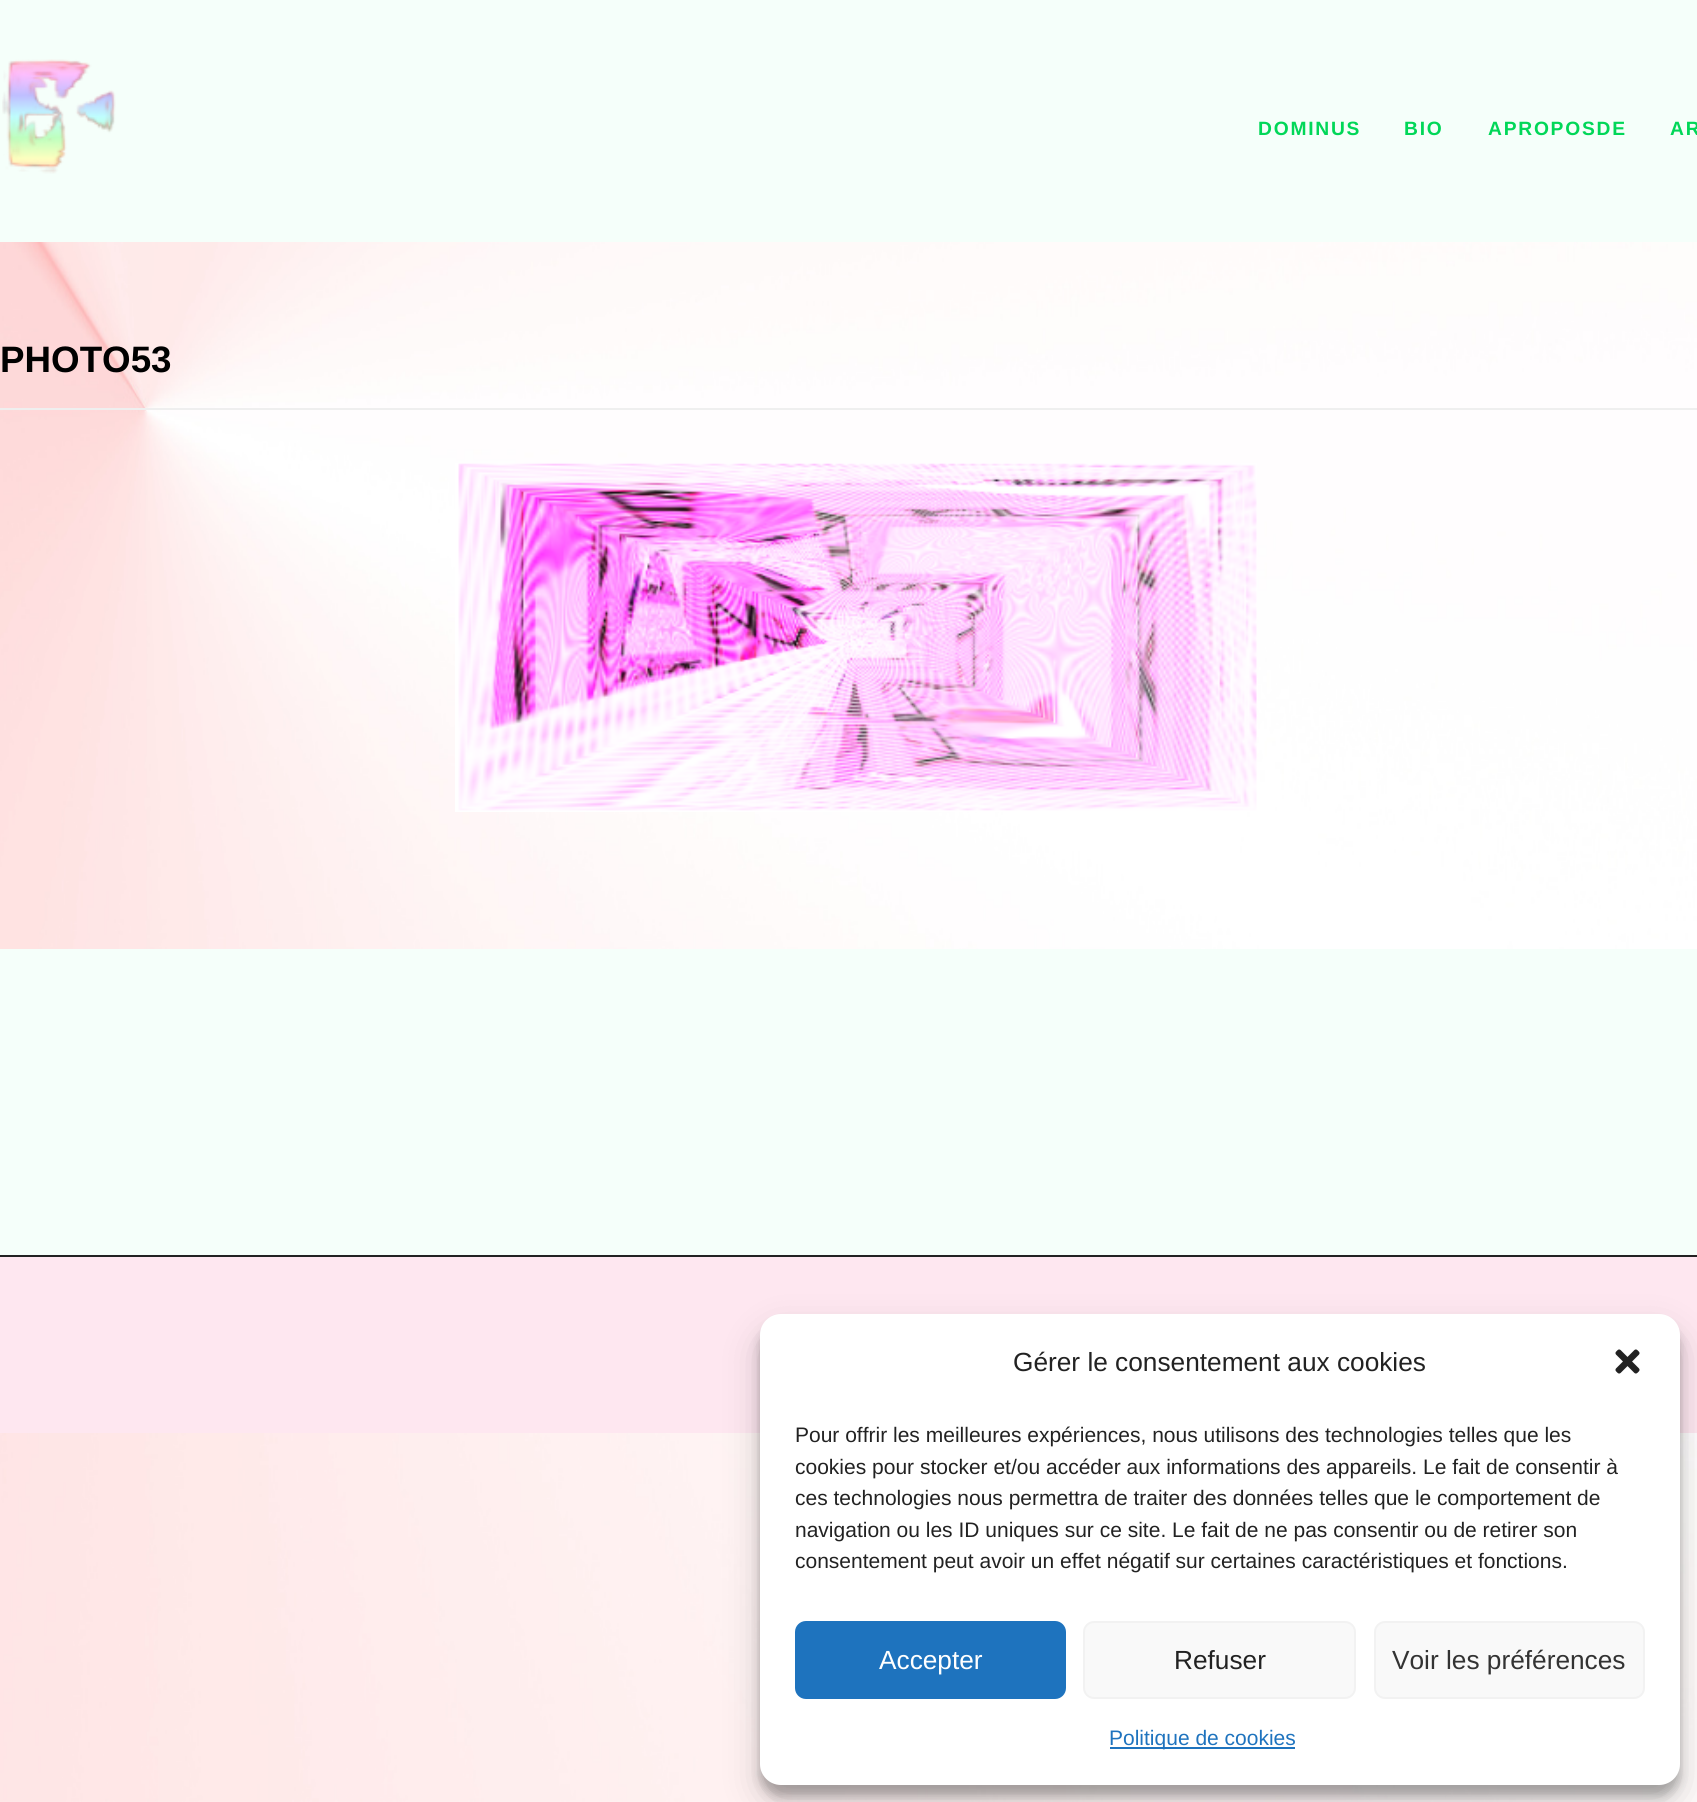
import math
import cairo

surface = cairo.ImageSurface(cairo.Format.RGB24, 1697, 1802)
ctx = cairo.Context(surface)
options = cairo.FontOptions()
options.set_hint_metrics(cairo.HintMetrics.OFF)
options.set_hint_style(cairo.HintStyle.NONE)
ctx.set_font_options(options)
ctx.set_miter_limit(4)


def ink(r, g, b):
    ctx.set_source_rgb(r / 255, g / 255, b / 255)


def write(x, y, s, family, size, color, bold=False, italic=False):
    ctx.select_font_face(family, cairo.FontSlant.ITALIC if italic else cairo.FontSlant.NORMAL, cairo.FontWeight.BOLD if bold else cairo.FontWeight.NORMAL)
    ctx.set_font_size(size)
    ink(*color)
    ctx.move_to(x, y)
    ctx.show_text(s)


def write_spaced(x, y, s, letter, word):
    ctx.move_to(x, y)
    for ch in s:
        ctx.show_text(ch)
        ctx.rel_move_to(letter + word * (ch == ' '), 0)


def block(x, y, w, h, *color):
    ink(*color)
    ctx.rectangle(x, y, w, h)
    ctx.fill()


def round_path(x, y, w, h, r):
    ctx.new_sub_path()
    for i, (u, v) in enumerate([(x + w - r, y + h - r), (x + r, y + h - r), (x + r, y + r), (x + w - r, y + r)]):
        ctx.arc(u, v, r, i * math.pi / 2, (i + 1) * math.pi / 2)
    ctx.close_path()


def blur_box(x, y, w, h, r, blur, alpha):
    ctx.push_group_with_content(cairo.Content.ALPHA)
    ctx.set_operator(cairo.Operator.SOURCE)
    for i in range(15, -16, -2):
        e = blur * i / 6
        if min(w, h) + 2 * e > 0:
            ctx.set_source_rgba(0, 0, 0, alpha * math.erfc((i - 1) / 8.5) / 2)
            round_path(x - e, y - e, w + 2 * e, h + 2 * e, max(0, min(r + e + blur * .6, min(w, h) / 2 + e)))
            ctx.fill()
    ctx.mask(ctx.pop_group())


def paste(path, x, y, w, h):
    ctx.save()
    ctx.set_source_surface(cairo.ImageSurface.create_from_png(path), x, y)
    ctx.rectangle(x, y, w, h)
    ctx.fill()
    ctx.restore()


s1 = dict(family="Liberation Sans", size=36.75, color=(0, 0, 0), bold=True)
s2 = dict(family="Liberation Sans", size=26.25, color=(34, 34, 34))
s3 = dict(family="Liberation Sans", size=21, color=(34, 34, 34))
s4 = dict(family="Liberation Sans", size=26.25, color=(255, 255, 255))
s5 = dict(family="Liberation Sans", size=26.25, color=(51, 51, 51))
s6 = dict(family="Liberation Sans", size=21, color=(30, 115, 190))

ink(255, 255, 255)
ctx.paint()
block(0, 0, 1697, 242, 245, 255, 250)
paste("pic1.png", 2, 59, 114, 115)
ctx.select_font_face("Liberation Sans", cairo.FontSlant.NORMAL, cairo.FontWeight.BOLD)
ctx.set_font_size(19.25)
ink(1, 215, 88)
write_spaced(1258, 135, "DOMINUS", 1.75, 0)
write_spaced(1404, 135, "BIO", 1.75, 0)
write_spaced(1488, 135, "APROPOSDE", 1.75, 0)
write_spaced(1670, 135, "AR", 1.75, 0)
paste("pic2.png", 0, 242, 1697, 1560)
block(0, 408, 1697, 2, 239, 239, 239)
write(0, 372, "PHOTO53", **s1)
paste("pic3.png", 455, 463, 802, 349)
block(0, 949, 1697, 306, 245, 255, 250)
block(0, 1257, 1697, 176, 254, 231, 240)
block(0, 1255, 1697, 2, 34, 34, 34)
ink(0, 0, 0)
blur_box(760, 1325, 920, 471, 21, 5, 0.23)
blur_box(760, 1332, 920, 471, 21, 17.5, 0.19)
ink(255, 255, 255)
round_path(760, 1314, 920, 471, 21)
ctx.fill()
write(1013, 1371, "Gérer le consentement aux cookies", **s2)
paste("pic4.png", 1615, 1349, 25, 25)
write(795, 1442, "Pour offrir les meilleures expériences, nous utilisons des technologies telles que les", **s3)
write(795, 1474, "cookies pour stocker et/ou accéder aux informations des appareils. Le fait de consentir à", **s3)
write(795, 1505, "ces technologies nous permettra de traiter des données telles que le comportement de", **s3)
write(795, 1537, "navigation ou les ID uniques sur ce site. Le fait de ne pas consentir ou de retirer son", **s3)
write(795, 1568, "consentement peut avoir un effet négatif sur certaines caractéristiques et fonctions.", **s3)
ink(30, 115, 190)
round_path(796, 1622, 269, 76, 10)
ctx.fill_preserve()
ctx.stroke()
write(879, 1669, "Accepter", **s4)
ink(249, 249, 249)
round_path(1084, 1622, 271, 76, 10)
ctx.fill_preserve()
ink(242, 242, 242)
ctx.stroke()
write(1174, 1669, "Refuser", **s2)
ink(249, 249, 249)
round_path(1375, 1622, 269, 76, 10)
ctx.fill_preserve()
ink(242, 242, 242)
ctx.stroke()
write(1392, 1669, "Voir les préférences", **s5)
block(1110, 1747, 185, 2, 30, 115, 190)
write(1109, 1745, "Politique de cookies", **s6)
surface.write_to_png("screenshot.png")
